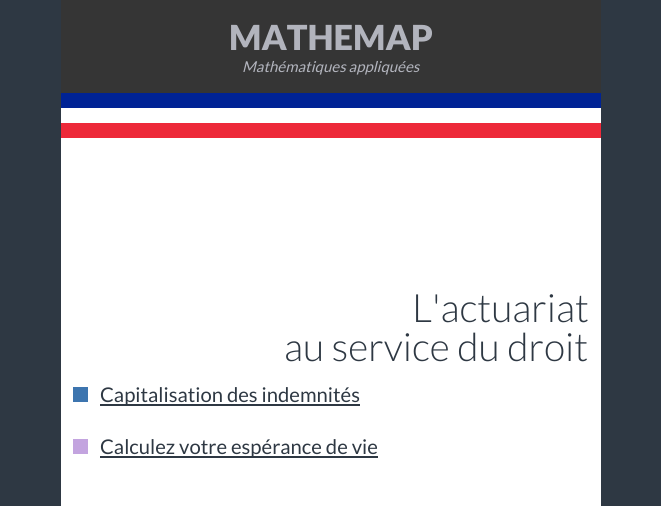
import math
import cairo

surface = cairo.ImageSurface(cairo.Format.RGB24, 661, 506)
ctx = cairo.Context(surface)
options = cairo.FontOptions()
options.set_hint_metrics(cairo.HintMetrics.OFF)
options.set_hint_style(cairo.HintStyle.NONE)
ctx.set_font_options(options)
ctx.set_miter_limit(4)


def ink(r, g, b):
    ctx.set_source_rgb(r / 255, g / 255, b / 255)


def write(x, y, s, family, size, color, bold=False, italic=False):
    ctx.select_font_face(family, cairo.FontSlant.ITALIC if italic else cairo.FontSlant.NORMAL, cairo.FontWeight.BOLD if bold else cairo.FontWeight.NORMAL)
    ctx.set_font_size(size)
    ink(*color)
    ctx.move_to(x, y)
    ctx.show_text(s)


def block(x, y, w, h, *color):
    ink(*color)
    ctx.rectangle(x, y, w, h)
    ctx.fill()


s1 = dict(family="Lato Black", size=34.5, color=(178, 180, 189))
s2 = dict(family="Lato", size=15, color=(178, 180, 189), italic=True)
s3 = dict(family="Lato Light", size=39, color=(46, 56, 67))
s4 = dict(family="Lato", size=20.25, color=(46, 56, 67))

ink(46, 56, 67)
ctx.paint()
block(61, 0, 540, 93, 53, 53, 53)
write(229, 50, "MATHEMAP", **s1)
write(242, 72, "Mathématiques appliquées", **s2)
block(61, 93, 540, 15, 0, 35, 149)
block(61, 108, 540, 15, 255, 255, 255)
block(61, 123, 540, 15, 237, 41, 57)
block(61, 138, 540, 368, 255, 255, 255)
write(412, 322, "L'actuariat", **s3)
write(284, 361, "au service du droit", **s3)
block(73, 387, 15, 15, 61, 117, 175)
block(100, 404, 260, 2, 46, 56, 67)
write(100, 402, "Capitalisation des indemnités", **s4)
block(73, 439, 15, 15, 195, 164, 223)
block(100, 456, 278, 2, 46, 56, 67)
write(100, 454, "Calculez votre espérance de vie", **s4)
surface.write_to_png("screenshot.png")
